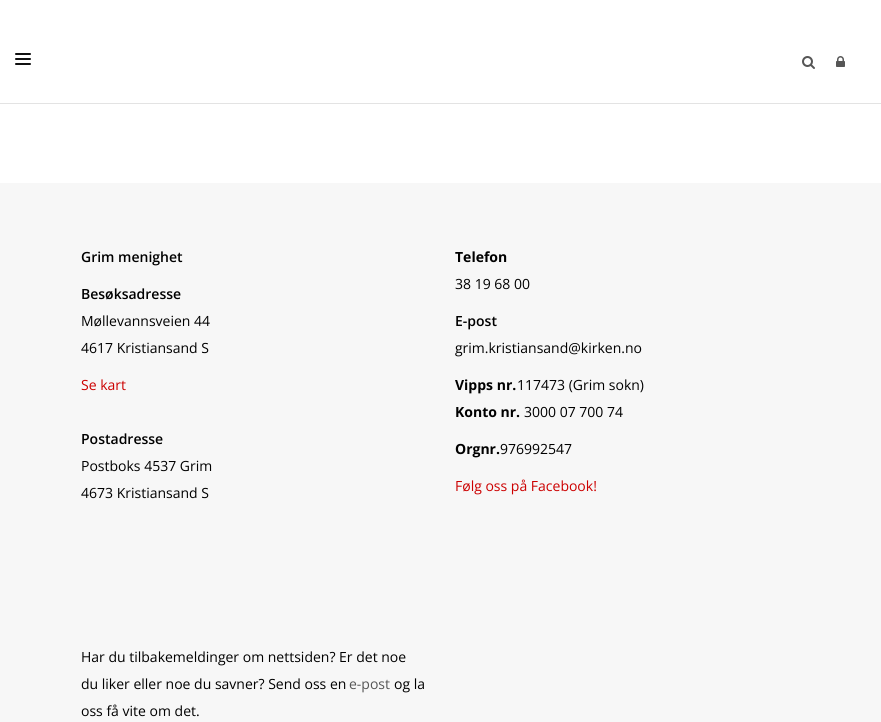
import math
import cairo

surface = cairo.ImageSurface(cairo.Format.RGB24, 881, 722)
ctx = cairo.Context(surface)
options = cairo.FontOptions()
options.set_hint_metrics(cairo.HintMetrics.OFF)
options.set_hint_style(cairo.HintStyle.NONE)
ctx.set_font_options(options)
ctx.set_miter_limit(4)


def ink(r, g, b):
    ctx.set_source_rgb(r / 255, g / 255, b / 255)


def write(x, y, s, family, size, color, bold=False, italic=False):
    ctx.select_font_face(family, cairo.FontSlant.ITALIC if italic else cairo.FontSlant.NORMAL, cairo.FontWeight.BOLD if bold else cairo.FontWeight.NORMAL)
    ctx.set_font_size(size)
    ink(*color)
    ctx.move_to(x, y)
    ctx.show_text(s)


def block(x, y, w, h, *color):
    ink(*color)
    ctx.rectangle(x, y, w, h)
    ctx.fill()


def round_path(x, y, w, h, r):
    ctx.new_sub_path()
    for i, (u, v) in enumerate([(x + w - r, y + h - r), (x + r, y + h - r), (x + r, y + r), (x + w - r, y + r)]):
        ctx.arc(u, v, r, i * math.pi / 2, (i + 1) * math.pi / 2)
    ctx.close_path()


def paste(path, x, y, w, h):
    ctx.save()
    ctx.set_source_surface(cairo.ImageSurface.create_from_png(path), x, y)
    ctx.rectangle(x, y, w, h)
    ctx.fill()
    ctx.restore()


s1 = dict(family="Open Sans SemiBold", size=14, color=(0, 0, 0))
s2 = dict(family="Open Sans", size=14, color=(0, 0, 0))
s3 = dict(family="Open Sans", size=14, color=(204, 0, 0))
s4 = dict(family="Open Sans", size=14, color=(0, 0, 0), bold=True)
s5 = dict(family="Open Sans", size=14, color=(86, 86, 86))

ink(255, 255, 255)
ctx.paint()
block(0, 103, 881, 1, 227, 227, 227)
ink(17, 17, 17)
round_path(15, 58, 16, 2, 1)
ctx.fill()
round_path(15, 53, 16, 2, 1)
ctx.fill()
round_path(15, 63, 16, 2, 1)
ctx.fill()
paste("pic1.png", 802, 56, 13, 13)
paste("pic2.png", 836, 56, 9, 11)
block(0, 183, 881, 539, 247, 247, 247)
write(81, 262, "Grim menighet", **s1)
write(81, 299, "Besøksadresse", **s1)
write(81, 326, "Møllevannsveien 44", **s2)
write(81, 353, "4617 Kristiansand S", **s2)
write(81, 390, "Se kart", **s3)
write(81, 444, "Postadresse", **s1)
write(81, 471, "Postboks 4537 Grim", **s2)
write(81, 498, "4673 Kristiansand S", **s2)
write(455, 262, "Telefon", **s4)
write(455, 289, "38 19 68 00", **s2)
write(455, 326, "E-post", **s1)
write(455, 353, "grim.kristiansand@kirken.no", **s2)
write(455, 390, "Vipps nr.", **s4)
write(517, 390, "117473 (Grim sokn)", **s2)
write(455, 417, "Konto nr.", **s4)
write(524, 417, "3000 07 700 74", **s2)
write(455, 454, "Orgnr.", **s4)
write(500, 454, "976992547", **s2)
write(455, 491, "Følg oss på Facebook!", **s3)
write(81, 662, "Har du tilbakemeldinger om nettsiden? Er det noe", **s2)
write(81, 689, "du liker eller noe du savner? Send oss en", **s2)
write(349, 689, "e-post", **s5)
write(394, 689, "og la", **s2)
write(81, 716, "oss få vite om det.", **s2)
surface.write_to_png("screenshot.png")
